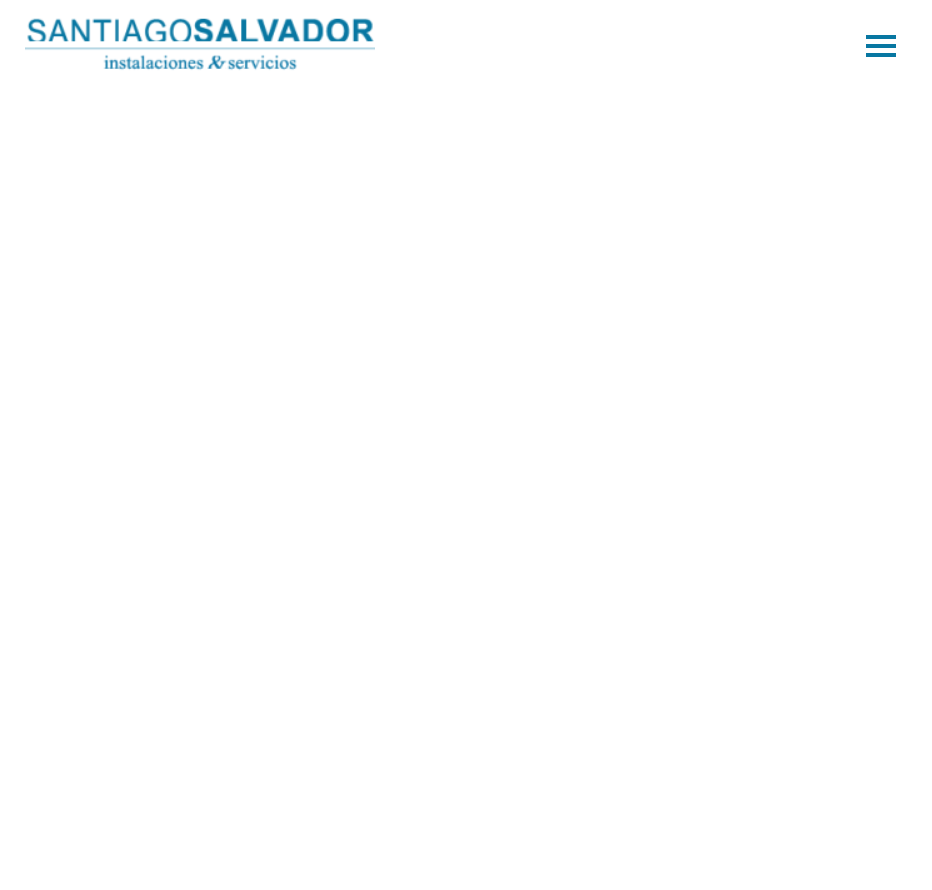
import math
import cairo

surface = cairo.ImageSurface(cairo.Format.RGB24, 932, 890)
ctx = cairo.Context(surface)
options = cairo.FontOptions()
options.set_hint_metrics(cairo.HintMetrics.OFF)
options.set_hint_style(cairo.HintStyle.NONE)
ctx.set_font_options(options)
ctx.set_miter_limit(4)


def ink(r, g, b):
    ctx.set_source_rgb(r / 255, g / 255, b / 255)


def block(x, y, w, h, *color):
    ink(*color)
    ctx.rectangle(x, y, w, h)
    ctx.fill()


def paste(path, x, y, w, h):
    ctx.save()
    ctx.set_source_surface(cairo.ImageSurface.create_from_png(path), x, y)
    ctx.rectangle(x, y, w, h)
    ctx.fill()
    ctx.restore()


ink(255, 255, 255)
ctx.paint()
paste("pic1.png", 25, 18, 350, 53)
block(866, 35, 30, 4, 8, 119, 162)
block(866, 44, 30, 4, 8, 119, 162)
block(866, 53, 30, 4, 8, 119, 162)
surface.write_to_png("screenshot.png")
